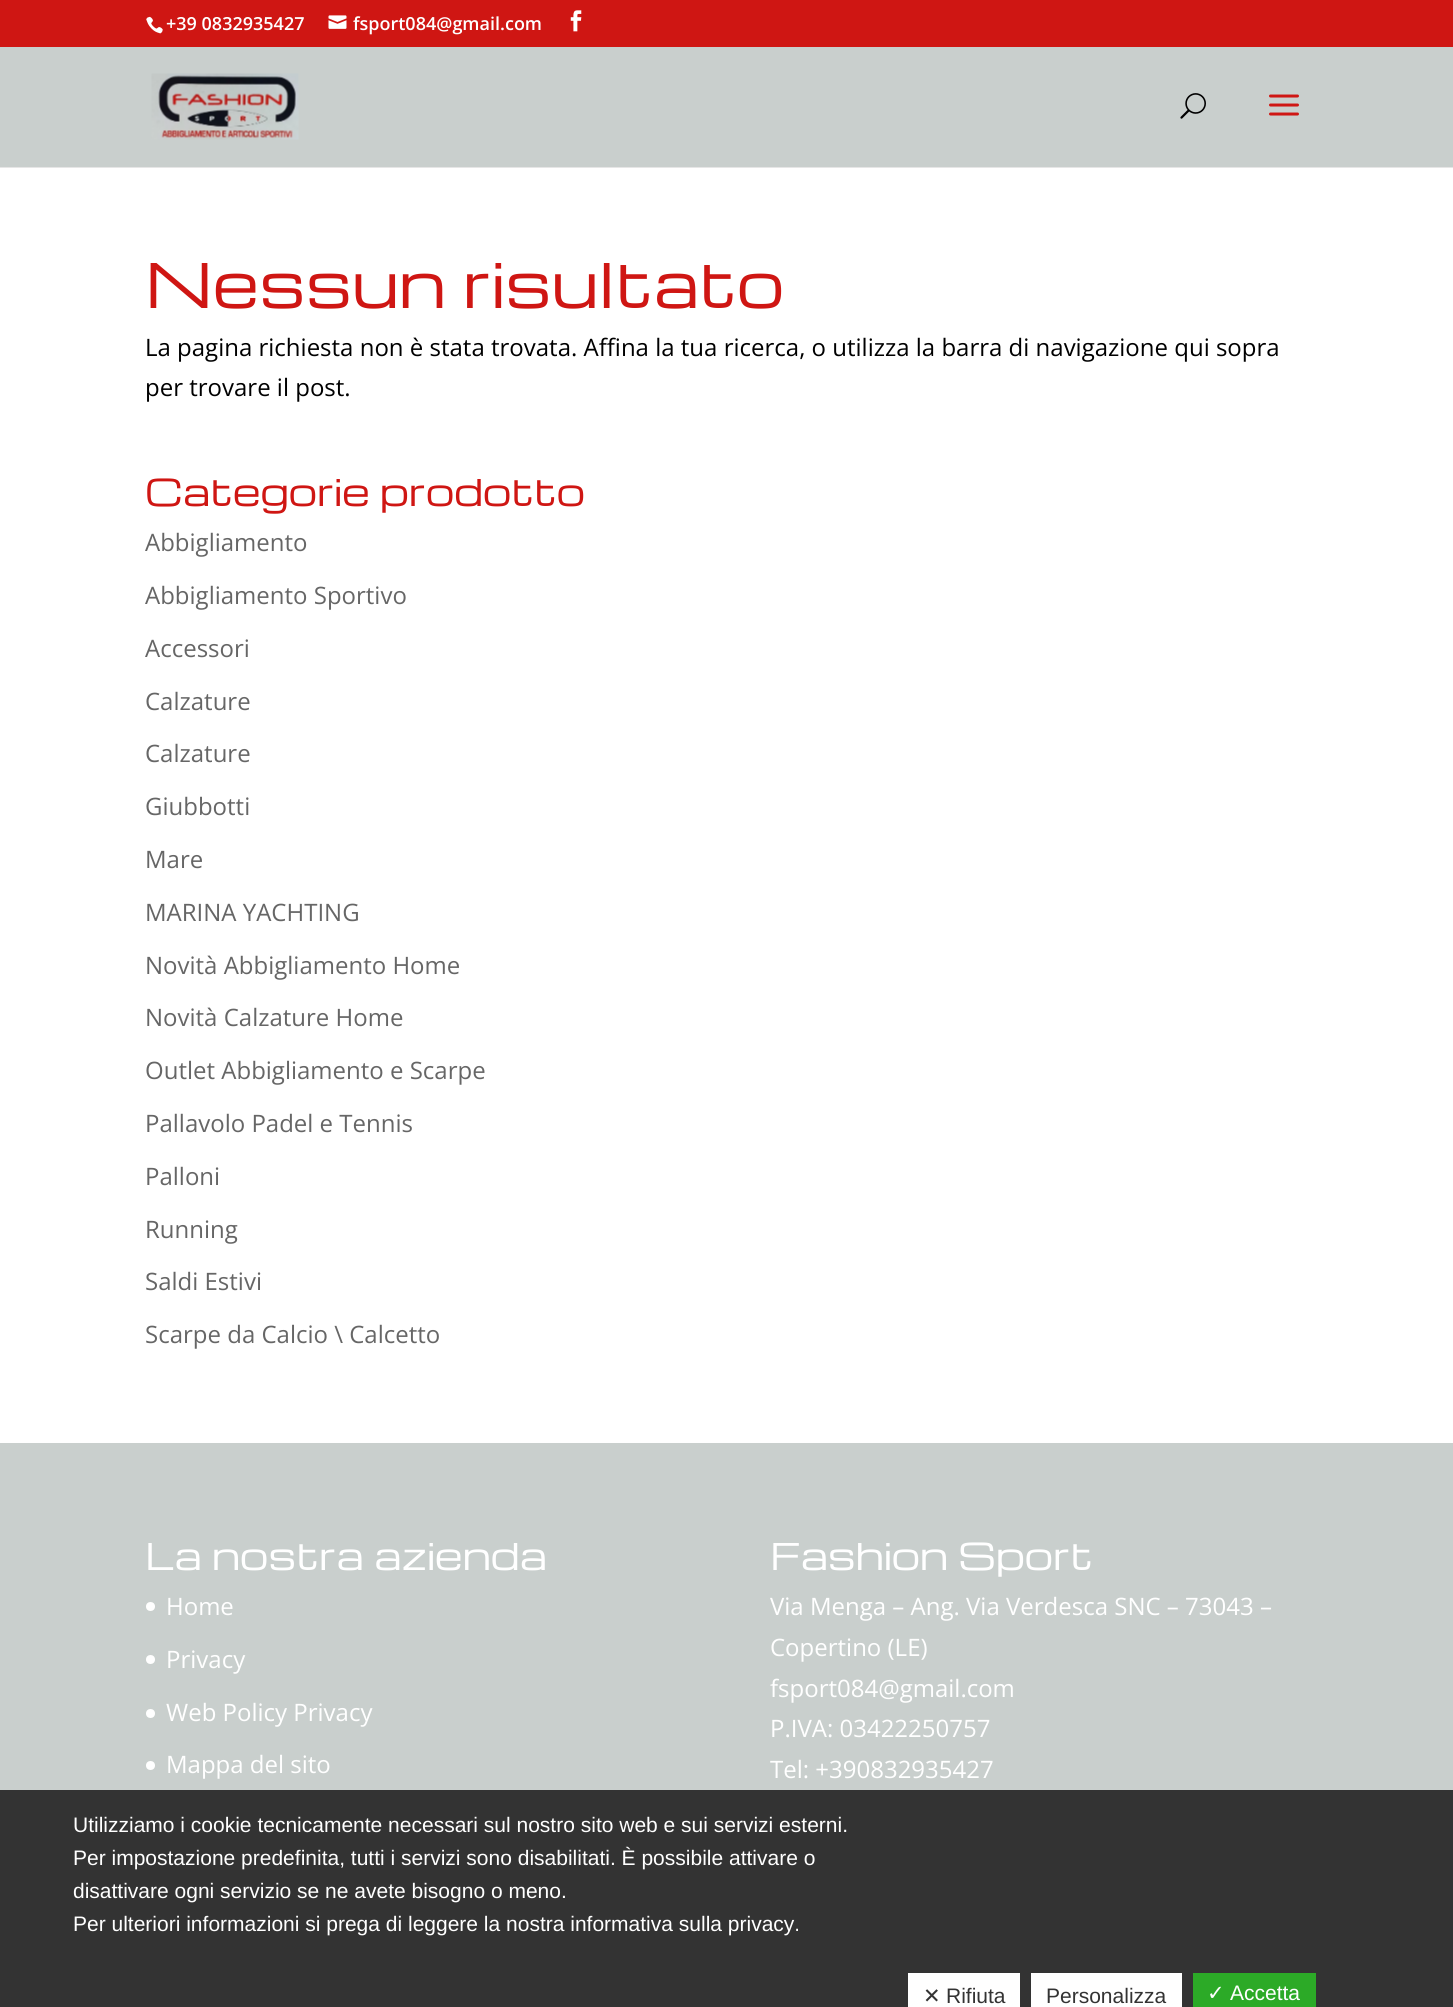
import math
import cairo

surface = cairo.ImageSurface(cairo.Format.RGB24, 1453, 2007)
ctx = cairo.Context(surface)
options = cairo.FontOptions()
options.set_hint_metrics(cairo.HintMetrics.OFF)
options.set_hint_style(cairo.HintStyle.NONE)
ctx.set_font_options(options)
ctx.set_miter_limit(4)


def ink(r, g, b):
    ctx.set_source_rgb(r / 255, g / 255, b / 255)


def write(x, y, s, family, size, color, bold=False, italic=False):
    ctx.select_font_face(family, cairo.FontSlant.ITALIC if italic else cairo.FontSlant.NORMAL, cairo.FontWeight.BOLD if bold else cairo.FontWeight.NORMAL)
    ctx.set_font_size(size)
    ink(*color)
    ctx.move_to(x, y)
    ctx.show_text(s)


def block(x, y, w, h, *color):
    ink(*color)
    ctx.rectangle(x, y, w, h)
    ctx.fill()


def paste(path, x, y, w, h):
    ctx.save()
    ctx.set_source_surface(cairo.ImageSurface.create_from_png(path), x, y)
    ctx.rectangle(x, y, w, h)
    ctx.fill()
    ctx.restore()


s1 = dict(family="Open Sans SemiBold", size=18, color=(255, 255, 255))
s2 = dict(family="Michroma", size=60, color=(207, 22, 19))
s3 = dict(family="Open Sans", size=24, color=(0, 0, 0))
s4 = dict(family="Michroma", size=36, color=(207, 22, 19))
s5 = dict(family="Open Sans", size=24, color=(102, 102, 102))
s6 = dict(family="Michroma", size=36, color=(255, 255, 255))
s7 = dict(family="Open Sans", size=24, color=(255, 255, 255))
s8 = dict(family="Liberation Sans", size=21, color=(255, 255, 255))
s9 = dict(family="DejaVu Sans", size=21, color=(51, 51, 51))
s10 = dict(family="Liberation Sans", size=21, color=(51, 51, 51))
s11 = dict(family="DejaVu Sans", size=21, color=(255, 255, 255))

ink(255, 255, 255)
ctx.paint()
block(0, 0, 1453, 47, 207, 22, 19)
paste("pic1.png", 146, 16, 17, 18)
write(166, 30, "+39 0832935427", **s1)
paste("pic2.png", 328, 15, 19, 14)
write(353, 30, "fsport084@gmail.com", **s1)
paste("pic3.png", 570, 10, 12, 22)
ink(230, 230, 230)
ctx.new_path()
ctx.move_to(0, 166)
ctx.line_to(0, 168)
ctx.line_to(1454, 168)
ctx.line_to(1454, 48)
ctx.line_to(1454, 166)
ctx.close_path()
ctx.fill()
block(0, 47, 1453, 120, 201, 207, 205)
paste("pic4.png", 151, 73, 148, 67)
paste("pic5.png", 1180, 93, 26, 26)
paste("pic6.png", 1269, 94, 30, 22)
write(145, 308, "Nessun risultato", **s2)
write(145, 356, "La pagina richiesta non è stata trovata. Affina la tua ricerca, o utilizza la barra di navigazione qui sopra", **s3)
write(145, 396, "per trovare il post.", **s3)
write(145, 506, "Categorie prodotto", **s4)
write(145, 551, "Abbigliamento", **s5)
write(145, 604, "Abbigliamento Sportivo", **s5)
write(145, 657, "Accessori", **s5)
write(145, 710, "Calzature", **s5)
write(145, 762, "Calzature", **s5)
write(145, 815, "Giubbotti", **s5)
write(145, 868, "Mare", **s5)
write(145, 921, "MARINA YACHTING", **s5)
write(145, 974, "Novità Abbigliamento Home", **s5)
write(145, 1026, "Novità Calzature Home", **s5)
write(145, 1079, "Outlet Abbigliamento e Scarpe", **s5)
write(145, 1132, "Pallavolo Padel e Tennis", **s5)
write(145, 1185, "Palloni", **s5)
write(145, 1238, "Running", **s5)
write(145, 1290, "Saldi Estivi", **s5)
write(145, 1343, "Scarpe da Calcio \\ Calcetto", **s5)
block(0, 1443, 1453, 347, 201, 207, 205)
write(145, 1570, "La nostra azienda", **s6)
ctx.new_path()
ctx.arc(150.5, 1606.5, 4.5, 0, 2 * math.pi)
ctx.fill()
write(166, 1615, "Home", **s7)
ctx.new_path()
ctx.arc(150.5, 1659.5, 4.5, 0, 2 * math.pi)
ctx.fill()
write(166, 1668, "Privacy", **s7)
ctx.new_path()
ctx.arc(150.5, 1713.5, 4.5, 0, 2 * math.pi)
ctx.fill()
write(166, 1721, "Web Policy Privacy", **s7)
ctx.new_path()
ctx.arc(150.5, 1765.5, 4.5, 0, 2 * math.pi)
ctx.fill()
write(166, 1773, "Mappa del sito", **s7)
write(770, 1570, "Fashion Sport", **s6)
write(770, 1615, "Via Menga – Ang. Via Verdesca SNC – 73043 –", **s7)
write(770, 1656, "Copertino (LE)", **s7)
write(770, 1697, "fsport084@gmail.com", **s7)
write(770, 1737, "P.IVA: 03422250757", **s7)
write(770, 1778, "Tel: +390832935427", **s7)
block(0, 1790, 1453, 217, 51, 51, 51)
write(73, 1832, "Utilizziamo i cookie tecnicamente necessari sul nostro sito web e sui servizi esterni.", **s8)
write(73, 1865, "Per impostazione predefinita, tutti i servizi sono disabilitati. È possibile attivare o", **s8)
write(73, 1898, "disattivare ogni servizio se ne avete bisogno o meno.", **s8)
write(73, 1931, "Per ulteriori informazioni si prega di leggere la nostra informativa sulla privacy.", **s8)
block(908, 1973, 112, 34, 255, 255, 255)
write(923, 2003, "✕", **s9)
write(946, 2003, "Rifiuta", **s10)
block(1031, 1973, 151, 34, 255, 255, 255)
write(1046, 2003, "Personalizza", **s10)
block(1193, 1973, 123, 34, 44, 170, 39)
write(1207, 2000, "✓", **s11)
write(1230, 2000, "Accetta", **s8)
surface.write_to_png("screenshot.png")
